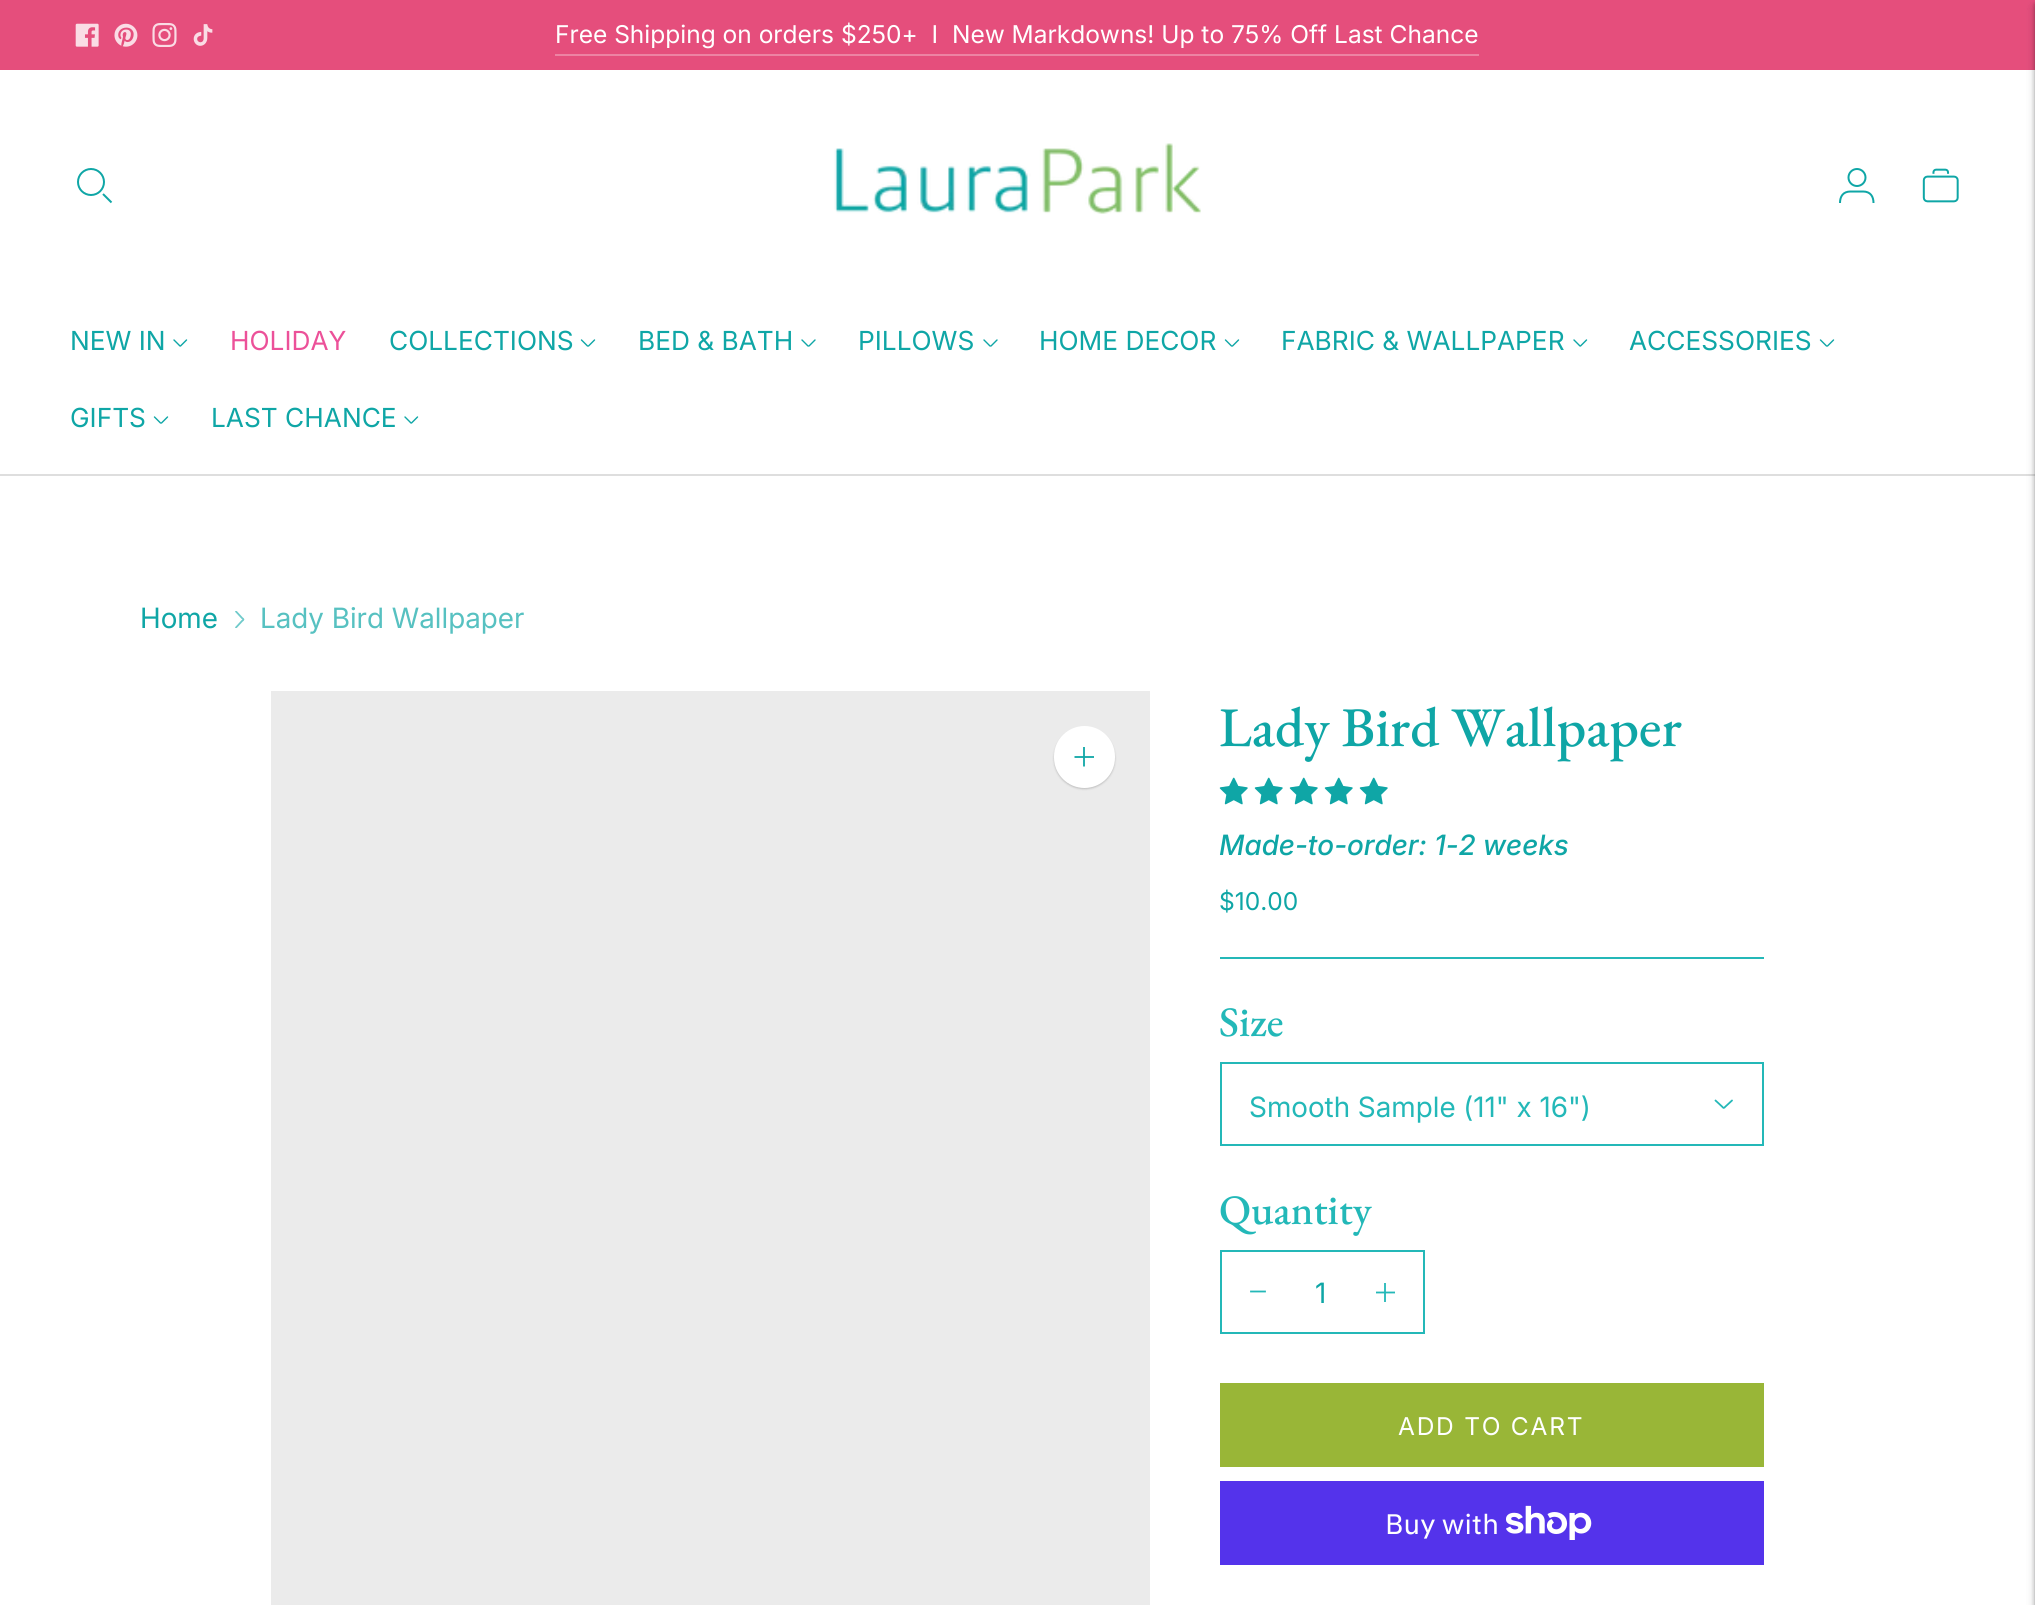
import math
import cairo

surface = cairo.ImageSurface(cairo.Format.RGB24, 2035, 1605)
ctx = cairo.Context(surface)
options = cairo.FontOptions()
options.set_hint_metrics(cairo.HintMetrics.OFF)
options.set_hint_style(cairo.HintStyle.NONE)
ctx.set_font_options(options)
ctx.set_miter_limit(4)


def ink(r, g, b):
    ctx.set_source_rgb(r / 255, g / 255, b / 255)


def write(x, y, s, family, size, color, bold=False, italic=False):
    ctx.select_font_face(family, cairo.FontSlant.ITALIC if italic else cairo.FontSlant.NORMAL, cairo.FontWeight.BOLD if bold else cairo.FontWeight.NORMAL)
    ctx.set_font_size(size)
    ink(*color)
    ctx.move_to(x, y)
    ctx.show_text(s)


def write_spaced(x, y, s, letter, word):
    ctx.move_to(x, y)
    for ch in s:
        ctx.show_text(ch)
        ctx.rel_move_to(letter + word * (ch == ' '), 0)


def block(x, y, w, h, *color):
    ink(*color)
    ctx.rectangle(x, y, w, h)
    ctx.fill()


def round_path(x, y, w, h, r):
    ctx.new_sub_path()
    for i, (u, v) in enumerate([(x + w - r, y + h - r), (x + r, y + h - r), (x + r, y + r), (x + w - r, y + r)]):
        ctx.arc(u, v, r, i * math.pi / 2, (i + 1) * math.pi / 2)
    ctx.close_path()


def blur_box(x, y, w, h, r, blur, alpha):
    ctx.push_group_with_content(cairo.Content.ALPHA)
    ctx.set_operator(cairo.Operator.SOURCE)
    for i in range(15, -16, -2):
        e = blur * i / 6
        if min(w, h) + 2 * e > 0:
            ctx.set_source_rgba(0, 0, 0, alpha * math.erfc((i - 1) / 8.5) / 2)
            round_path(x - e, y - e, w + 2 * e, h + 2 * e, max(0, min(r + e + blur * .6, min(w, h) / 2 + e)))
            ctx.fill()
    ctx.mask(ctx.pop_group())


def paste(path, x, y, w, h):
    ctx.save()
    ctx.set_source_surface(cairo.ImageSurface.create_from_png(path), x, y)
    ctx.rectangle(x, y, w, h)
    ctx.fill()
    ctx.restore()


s1 = dict(family="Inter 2", size=24.5, color=(255, 255, 255))
s2 = dict(family="Inter 2", size=26.25, color=(15, 166, 166))
s3 = dict(family="Inter 2", size=26.25, color=(236, 81, 153))
s4 = dict(family="Inter", size=28, color=(15, 166, 166))
s5 = dict(family="Inter", size=28, color=(87, 193, 193))
s6 = dict(family="EB Garamond Medium", size=56, color=(15, 166, 166))
s7 = dict(family="Inter Medium", size=28, color=(15, 166, 166), italic=True)
s8 = dict(family="Inter 2", size=24.5, color=(15, 166, 166))
s9 = dict(family="EB Garamond Medium", size=42, color=(35, 184, 184))
s10 = dict(family="Inter", size=28, color=(35, 184, 184))
s11 = dict(family="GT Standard", size=28, color=(255, 255, 255))

ink(255, 255, 255)
ctx.paint()
block(0, 0, 2035, 70, 229, 78, 124)
paste("pic1.png", 75, 23, 24, 24)
paste("pic2.png", 114, 23, 24, 24)
paste("pic3.png", 152, 23, 25, 24)
paste("pic4.png", 193, 24, 20, 22)
write(555, 43, "Free Shipping on orders $250+  I  New Markdowns! Up to 75% Off Last Chance", **s1)
block(555, 54, 924, 2, 237, 131, 163)
block(0, 474, 2035, 2, 222, 222, 222)
ctx.new_path()
ctx.arc(91, 182, 13, 0, 2 * math.pi)
ink(15, 166, 166)
ctx.stroke()
ctx.new_path()
ctx.move_to(103, 194)
ctx.line_to(111.5, 202.5)
ctx.stroke()
paste("pic5.png", 834, 143, 367, 71)
ctx.arc(1857, 177.5, 8.5, 0, 2 * math.pi)
ctx.stroke()
ctx.new_path()
ctx.move_to(1840, 203)
ctx.curve_to(1840, 196.5, 1843, 191.5, 1850.5, 191.5)
ctx.line_to(1863, 191.5)
ctx.curve_to(1870.5, 191.5, 1873.5, 196.5, 1873.5, 203)
ctx.stroke()
paste("pic6.png", 1922, 168, 37, 35)
write(70, 350, "NEW IN", **s2)
ctx.new_path()
ctx.move_to(174, 340)
ctx.line_to(180, 346)
ctx.line_to(180.5, 346)
ctx.line_to(186.5, 340)
ctx.set_line_width(1.4)
ctx.set_line_cap(cairo.LineCap.ROUND)
ctx.set_line_join(cairo.LineJoin.ROUND)
ctx.stroke()
write(230, 350, "HOLIDAY", **s3)
write(389, 350, "COLLECTIONS", **s2)
ctx.new_path()
ctx.move_to(581.5, 340)
ctx.line_to(587.5, 346)
ctx.line_to(588.5, 346)
ctx.line_to(594.5, 340)
ctx.stroke()
write(638, 350, "BED & BATH", **s2)
ctx.new_path()
ctx.move_to(802, 340)
ctx.line_to(808, 346)
ctx.line_to(809, 346)
ctx.line_to(815, 340)
ctx.stroke()
write(858, 350, "PILLOWS", **s2)
ctx.new_path()
ctx.move_to(984, 340)
ctx.line_to(990, 346)
ctx.line_to(991, 346)
ctx.line_to(997, 340)
ctx.stroke()
write(1039, 350, "HOME DECOR", **s2)
ctx.new_path()
ctx.move_to(1225.5, 340)
ctx.line_to(1231.5, 346)
ctx.line_to(1232.5, 346)
ctx.line_to(1238.5, 340)
ctx.stroke()
write(1281, 350, "FABRIC & WALLPAPER", **s2)
ctx.new_path()
ctx.move_to(1574, 340)
ctx.line_to(1580, 346)
ctx.line_to(1580.5, 346)
ctx.line_to(1586.5, 340)
ctx.stroke()
write(1629, 350, "ACCESSORIES", **s2)
ctx.new_path()
ctx.move_to(1820.5, 340)
ctx.line_to(1826.5, 346)
ctx.line_to(1827.5, 346)
ctx.line_to(1833.5, 340)
ctx.stroke()
write(70, 427, "GIFTS", **s2)
ctx.new_path()
ctx.move_to(154.5, 417)
ctx.line_to(160.5, 423)
ctx.line_to(161.5, 423)
ctx.line_to(167.5, 417)
ctx.stroke()
write(211, 427, "LAST CHANCE", **s2)
ctx.new_path()
ctx.move_to(405, 417)
ctx.line_to(411, 423)
ctx.line_to(411.5, 423)
ctx.line_to(417.5, 417)
ctx.stroke()
ink(0, 0, 0)
blur_box(2035, 7, 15, 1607, 0, 5, 0.1)
blur_box(2035, 4, 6, 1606, 0, 2, 0.15)
write(140, 628, "Home", **s4)
ctx.save()
ctx.rectangle(231, 611, 18, 17)
ctx.clip()
ctx.new_path()
ctx.move_to(236, 611.5)
ctx.line_to(242, 618)
ctx.curve_to(244, 619.5, 244, 619.5, 242, 621)
ctx.line_to(236, 627.5)
ink(111, 202, 202)
ctx.set_line_width(1.8)
ctx.stroke()
ctx.restore()
write(260, 628, "Lady Bird Wallpaper", **s5)
block(271, 691, 879, 914, 235, 235, 235)
ink(0, 0, 0)
blur_box(1054, 728, 61, 61, 30.5, 1, 0.2)
ink(255, 255, 255)
round_path(1054, 726, 61, 62, 30.5)
ctx.fill()
ctx.new_path()
ctx.move_to(1084, 747)
ctx.line_to(1084, 766.5)
ctx.move_to(1074.5, 757)
ctx.line_to(1094, 757)
ink(15, 166, 166)
ctx.set_line_width(1.8)
ctx.set_line_cap(cairo.LineCap.BUTT)
ctx.set_line_join(cairo.LineJoin.MITER)
ctx.stroke()
write(1219, 746, "Lady Bird Wallpaper", **s6)
paste("pic7.png", 1219, 777, 29, 28)
paste("pic7.png", 1254, 777, 29, 28)
paste("pic7.png", 1289, 777, 29, 28)
paste("pic7.png", 1324, 777, 29, 28)
paste("pic7.png", 1359, 777, 29, 28)
write(1219, 855, "Made-to-order: 1-2 weeks", **s7)
write(1219, 910, "$10.00", **s8)
block(1220, 957, 544, 2, 36, 184, 184)
write(1219, 1036, "Size", **s9)
ctx.rectangle(1221, 1063, 542, 82)
ink(36, 184, 184)
ctx.set_line_width(2)
ctx.stroke()
write(1249, 1117, "Smooth Sample (11\" x 16\")", **s10)
ctx.new_path()
ctx.move_to(1715.5, 1100.5)
ctx.line_to(1722, 1106.5)
ctx.curve_to(1724, 1108.5, 1723.5, 1108.5, 1725.5, 1106.5)
ctx.line_to(1732, 1100.5)
ink(36, 184, 184)
ctx.set_line_width(1.8)
ctx.set_line_cap(cairo.LineCap.ROUND)
ctx.set_line_join(cairo.LineJoin.ROUND)
ctx.stroke()
write(1219, 1224, "Quantity", **s9)
ctx.rectangle(1221, 1251, 203, 82)
ink(36, 184, 184)
ctx.set_line_width(2)
ctx.set_line_cap(cairo.LineCap.BUTT)
ctx.set_line_join(cairo.LineJoin.MITER)
ctx.stroke()
ctx.new_path()
ctx.move_to(1251, 1291.5)
ctx.line_to(1265, 1291.5)
ctx.set_line_width(1.8)
ctx.set_line_cap(cairo.LineCap.SQUARE)
ctx.stroke()
write(1315, 1303, "1", **s4)
ctx.save()
ctx.rectangle(1376, 1283, 19, 19)
ctx.clip()
ctx.new_path()
ctx.move_to(1385, 1283)
ctx.line_to(1385, 1302)
ctx.move_to(1375.5, 1292.5)
ctx.line_to(1395, 1292.5)
ink(36, 184, 184)
ctx.set_line_cap(cairo.LineCap.BUTT)
ctx.stroke()
ctx.restore()
block(1220, 1383, 544, 84, 153, 182, 55)
ctx.select_font_face("Inter 2")
ctx.set_font_size(24.5)
ink(255, 255, 255)
write_spaced(1398, 1435, "ADD TO CART", 1.75, 0)
block(1220, 1481, 544, 84, 84, 51, 235)
write(1385, 1534, "Buy with", **s11)
paste("pic8.png", 1506, 1505, 86, 35)
ink(0, 0, 0)
blur_box(2035, 7, 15, 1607, 0, 5, 0.1)
blur_box(2035, 4, 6, 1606, 0, 2, 0.15)
surface.write_to_png("screenshot.png")
